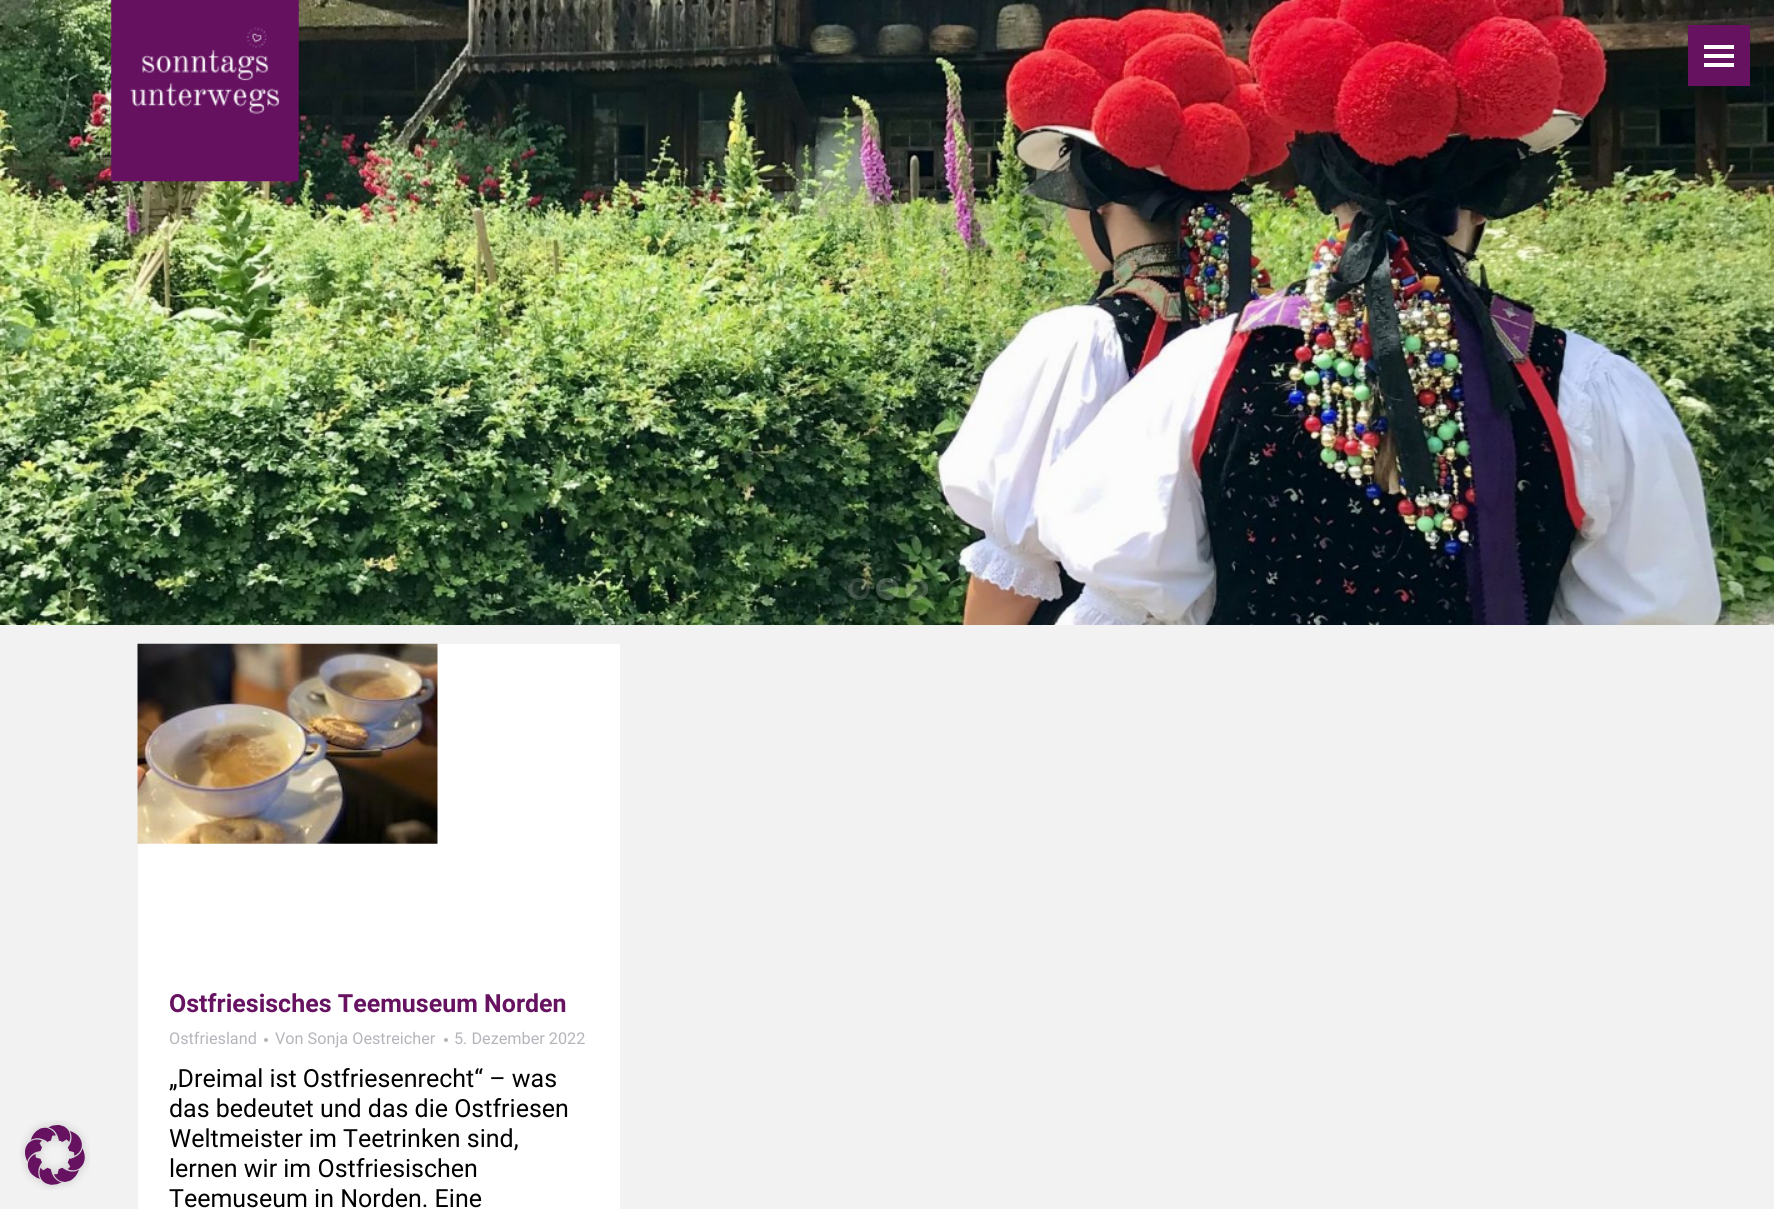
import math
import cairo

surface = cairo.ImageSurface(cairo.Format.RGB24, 1774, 1209)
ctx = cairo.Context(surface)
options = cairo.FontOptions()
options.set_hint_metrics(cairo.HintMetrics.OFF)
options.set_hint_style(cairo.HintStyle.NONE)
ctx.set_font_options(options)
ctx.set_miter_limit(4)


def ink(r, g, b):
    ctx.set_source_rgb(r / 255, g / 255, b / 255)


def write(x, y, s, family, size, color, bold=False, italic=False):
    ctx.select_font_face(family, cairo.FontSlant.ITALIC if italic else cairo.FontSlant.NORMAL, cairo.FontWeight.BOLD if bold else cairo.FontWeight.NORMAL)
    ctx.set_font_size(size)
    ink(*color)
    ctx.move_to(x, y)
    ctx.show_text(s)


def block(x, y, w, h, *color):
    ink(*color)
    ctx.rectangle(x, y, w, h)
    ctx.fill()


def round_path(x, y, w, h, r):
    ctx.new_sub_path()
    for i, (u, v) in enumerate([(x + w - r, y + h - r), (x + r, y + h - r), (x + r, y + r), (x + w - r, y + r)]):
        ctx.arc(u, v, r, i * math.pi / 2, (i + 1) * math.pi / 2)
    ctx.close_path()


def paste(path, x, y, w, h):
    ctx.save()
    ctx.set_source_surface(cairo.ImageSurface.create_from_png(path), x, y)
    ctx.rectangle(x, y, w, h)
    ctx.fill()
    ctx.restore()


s1 = dict(family="Roboto", size=25, color=(102, 18, 97), bold=True)
s2 = dict(family="Roboto", size=16.25, color=(180, 181, 187))
s3 = dict(family="Roboto", size=25, color=(0, 0, 0))

ink(242, 242, 242)
ctx.paint()
paste("pic1.png", 20, 1120, 70, 70)
paste("pic2.png", 0, 0, 1774, 625)
paste("pic3.png", 111, 0, 188, 182)
ctx.set_source_rgba(0.4, 0.4, 0.4, 0.14)
ctx.arc(859, 589, 11, 0, 2 * math.pi)
ctx.fill()
ctx.arc(859, 589, 9, 0, 2 * math.pi)
ctx.set_source_rgba(0.898, 0.898, 0.898, 0.14)
ctx.set_line_width(4)
ctx.stroke()
round_path(878, 580, 19, 18, 9)
ctx.stroke()
round_path(907, 580, 19, 18, 9)
ctx.stroke()
block(1688, 25, 62, 61, 102, 18, 97)
block(1704, 45, 30, 4, 255, 255, 255)
block(1704, 54, 30, 4, 255, 255, 255)
block(1704, 63, 30, 4, 255, 255, 255)
block(138, 644, 482, 565, 255, 255, 255)
paste("pic4.png", 137, 643, 301, 201)
write(169, 1012, "Ostfriesisches Teemuseum Norden", **s1)
write(169, 1044, "Ostfriesland", **s2)
ctx.new_path()
ctx.arc(266, 1040, 2, 0, 2 * math.pi)
ctx.fill()
write(275, 1044, "Von Sonja Oestreicher", **s2)
ctx.new_path()
ctx.arc(446, 1040, 2, 0, 2 * math.pi)
ctx.fill()
write(454, 1044, "5. Dezember 2022", **s2)
write(169, 1087, "„Dreimal ist Ostfriesenrecht“ – was", **s3)
write(169, 1117, "das bedeutet und das die Ostfriesen", **s3)
write(169, 1147, "Weltmeister im Teetrinken sind,", **s3)
write(169, 1177, "lernen wir im Ostfriesischen", **s3)
write(169, 1207, "Teemuseum in Norden. Eine", **s3)
surface.write_to_png("screenshot.png")
